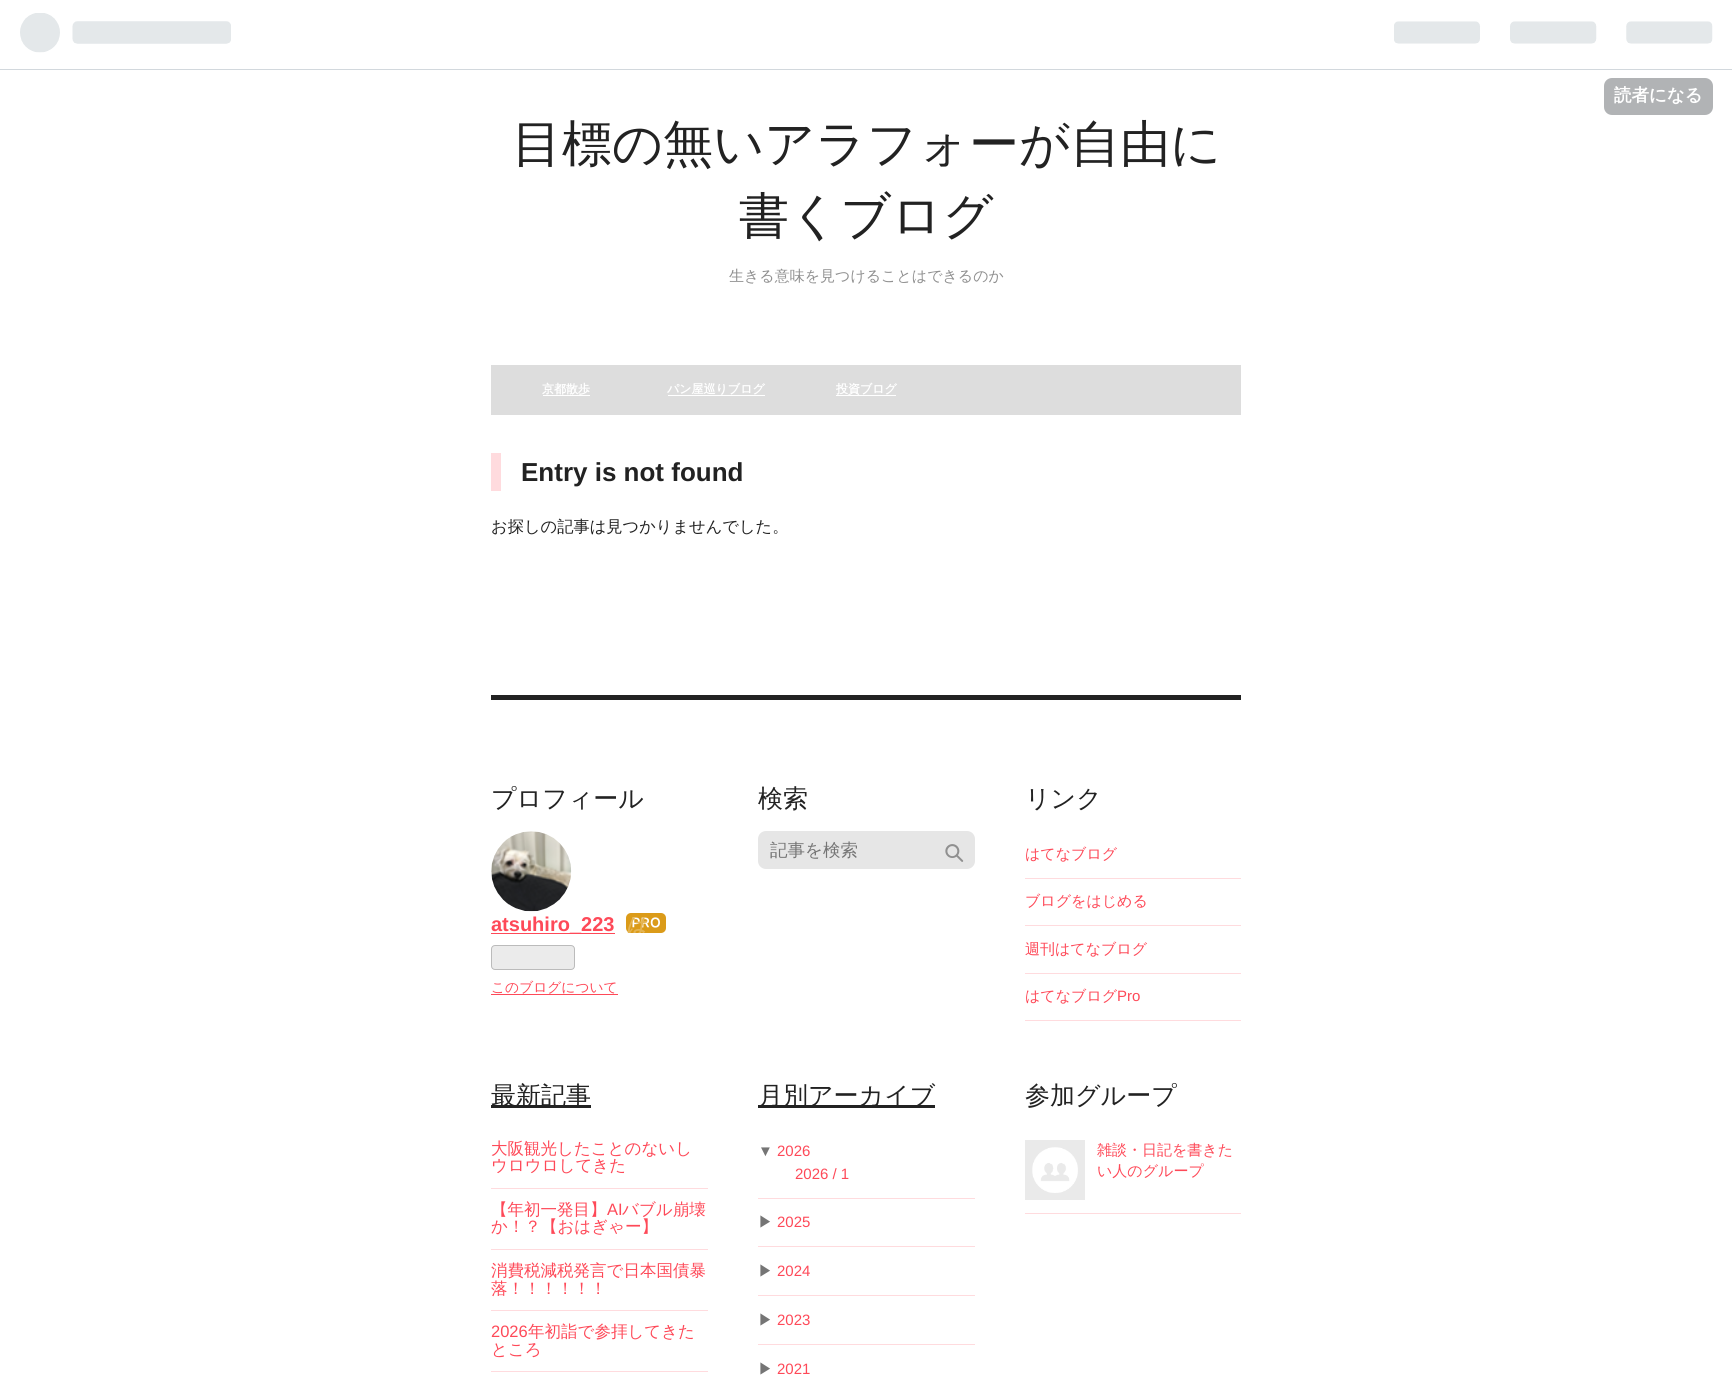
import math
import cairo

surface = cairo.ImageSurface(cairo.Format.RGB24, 1732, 1389)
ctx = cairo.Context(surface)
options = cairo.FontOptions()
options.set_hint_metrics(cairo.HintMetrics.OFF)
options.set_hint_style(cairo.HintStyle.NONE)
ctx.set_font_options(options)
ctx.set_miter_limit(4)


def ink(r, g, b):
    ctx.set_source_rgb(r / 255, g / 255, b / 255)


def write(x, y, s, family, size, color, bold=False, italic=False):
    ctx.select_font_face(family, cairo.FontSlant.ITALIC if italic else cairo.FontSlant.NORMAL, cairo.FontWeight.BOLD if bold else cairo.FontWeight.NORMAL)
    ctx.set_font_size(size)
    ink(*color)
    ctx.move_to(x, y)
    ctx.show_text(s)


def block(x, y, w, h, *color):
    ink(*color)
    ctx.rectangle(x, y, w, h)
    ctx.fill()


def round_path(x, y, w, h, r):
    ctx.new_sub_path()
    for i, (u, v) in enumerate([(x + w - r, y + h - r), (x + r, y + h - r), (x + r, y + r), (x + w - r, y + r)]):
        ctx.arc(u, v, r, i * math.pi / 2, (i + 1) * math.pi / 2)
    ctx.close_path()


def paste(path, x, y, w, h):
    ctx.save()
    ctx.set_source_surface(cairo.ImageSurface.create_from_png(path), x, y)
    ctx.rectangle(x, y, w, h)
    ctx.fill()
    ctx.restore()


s1 = dict(family="WenQuanYi Zen Hei", size=17.5, color=(255, 255, 255), bold=True)
s2 = dict(family="WenQuanYi Zen Hei Medium", size=50, color=(34, 34, 34))
s3 = dict(family="WenQuanYi Zen Hei Medium", size=15, color=(144, 144, 144))
s4 = dict(family="WenQuanYi Zen Hei", size=12, color=(255, 255, 255), bold=True)
s5 = dict(family="Liberation Sans", size=26, color=(34, 34, 34), bold=True)
s6 = dict(family="WenQuanYi Zen Hei Medium", size=16.25, color=(34, 34, 34))
s7 = dict(family="WenQuanYi Zen Hei Medium", size=25, color=(34, 34, 34))
s8 = dict(family="Liberation Sans", size=20, color=(254, 73, 88), bold=True)
s9 = dict(family="WenQuanYi Zen Hei", size=20, color=(228, 180, 83), bold=True, italic=True)
s10 = dict(family="WenQuanYi Zen Hei Medium", size=13.75, color=(254, 73, 88))
s11 = dict(family="WenQuanYi Zen Hei Medium", size=17.5, color=(117, 117, 117))
s12 = dict(family="WenQuanYi Zen Hei Medium", size=15, color=(254, 73, 88))
s13 = dict(family="Liberation Sans", size=15, color=(254, 73, 88))
s14 = dict(family="WenQuanYi Zen Hei Medium", size=16.5, color=(254, 73, 88))
s15 = dict(family="Liberation Sans", size=16.5, color=(254, 73, 88))
s16 = dict(family="Liberation Sans", size=15, color=(117, 117, 117))
s17 = dict(family="WenQuanYi Zen Hei Medium", size=15, color=(117, 117, 117))

ink(255, 255, 255)
ctx.paint()
block(0, 69, 1732, 1, 210, 216, 221)
paste("pic1.png", 20, 13, 211, 40)
paste("pic2.png", 1394, 21, 319, 23)
ink(177, 179, 181)
round_path(1604, 78, 109, 37, 8)
ctx.fill()
write(1614, 101, "読者になる", **s1)
write(512, 161, "目標の無いアラフォーが自由に", **s2)
write(739, 233, "書くブログ", **s2)
write(729, 281, "生きる意味を見つけることはできるのか", **s3)
block(491, 365, 750, 50, 221, 221, 221)
write(542, 393, "京都散歩", **s4)
block(543, 395, 47, 1, 255, 255, 255)
write(667, 393, "パン屋巡りブログ", **s4)
block(668, 395, 97, 1, 255, 255, 255)
block(836, 395, 60, 1, 255, 255, 255)
write(836, 393, "投資ブログ", **s4)
block(491, 453, 10, 38, 255, 219, 222)
write(521, 481, "Entry is not found", **s5)
write(491, 532, "お探しの記事は見つかりませんでした。", **s6)
block(491, 695, 750, 5, 34, 34, 34)
write(491, 807, "プロフィール", **s7)
paste("pic3.png", 491, 831, 81, 81)
block(491, 933, 124, 1, 254, 73, 88)
write(491, 931, "atsuhiro_223", **s8)
paste("pic4.png", 626, 913, 40, 20)
ctx.save()
ctx.rectangle(626, 913, 40, 20)
ctx.clip()
write(626, 932, "は", **s9)
ctx.restore()
ink(235, 235, 235)
round_path(491.5, 945.5, 83, 24, 3.5)
ctx.fill_preserve()
ink(187, 187, 187)
ctx.set_line_width(1)
ctx.stroke()
write(491, 992, "このブログについて", **s10)
block(491, 994, 127, 1, 254, 73, 88)
write(758, 807, "検索", **s7)
ink(230, 230, 230)
round_path(758, 831, 217, 38, 8)
ctx.fill()
write(770, 856, "記事を検索", **s11)
paste("pic5.png", 945, 844, 19, 18)
write(1025, 807, "リンク", **s7)
block(1025, 878, 216, 1, 255, 219, 222)
write(1025, 859, "はてなブログ", **s12)
block(1025, 925, 216, 1, 255, 219, 222)
write(1025, 906, "ブログをはじめる", **s12)
block(1025, 973, 216, 1, 255, 219, 222)
write(1025, 954, "週刊はてなブログ", **s12)
block(1025, 1020, 216, 1, 255, 219, 222)
write(1025, 1001, "はてなブログ", **s12)
write(1117, 1001, "Pro", **s13)
block(491, 1105, 100, 3, 34, 34, 34)
write(491, 1104, "最新記事", **s7)
block(491, 1188, 217, 1, 255, 219, 222)
write(491, 1154, "大阪観光したことのないし", **s14)
write(491, 1171, "ウロウロしてきた", **s14)
block(491, 1249, 217, 1, 255, 219, 222)
write(491, 1215, "【年初一発目】", **s14)
write(607, 1215, "AI", **s15)
write(622, 1215, "バブル崩壊", **s14)
write(491, 1232, "か！？【おはぎゃー】", **s14)
block(491, 1310, 217, 1, 255, 219, 222)
write(491, 1276, "消費税減税発言で日本国債暴", **s14)
write(491, 1294, "落！！！！！！", **s14)
block(491, 1371, 217, 1, 255, 219, 222)
write(491, 1337, "2026", **s15)
write(528, 1337, "年初詣で参拝してきた", **s14)
write(491, 1355, "ところ", **s14)
block(758, 1105, 177, 3, 34, 34, 34)
write(758, 1104, "月別アーカイブ", **s7)
block(758, 1198, 217, 1, 255, 219, 222)
write(758, 1156, "▼", **s16)
write(777, 1156, "2026", **s13)
write(795, 1179, "2026 / 1", **s13)
block(758, 1246, 217, 1, 255, 219, 222)
write(758, 1227, "▶", **s17)
write(777, 1227, "2025", **s13)
block(758, 1295, 217, 1, 255, 219, 222)
write(758, 1276, "▶", **s17)
write(777, 1276, "2024", **s13)
block(758, 1344, 217, 1, 255, 219, 222)
write(758, 1325, "▶", **s17)
write(777, 1325, "2023", **s13)
write(758, 1374, "▶", **s17)
write(777, 1374, "2021", **s13)
write(1025, 1104, "参加グループ", **s7)
block(1025, 1213, 216, 1, 255, 219, 222)
paste("pic6.png", 1025, 1140, 60, 60)
write(1097, 1155, "雑談・日記を書きた", **s12)
write(1097, 1176, "い人のグループ", **s12)
surface.write_to_png("screenshot.png")
